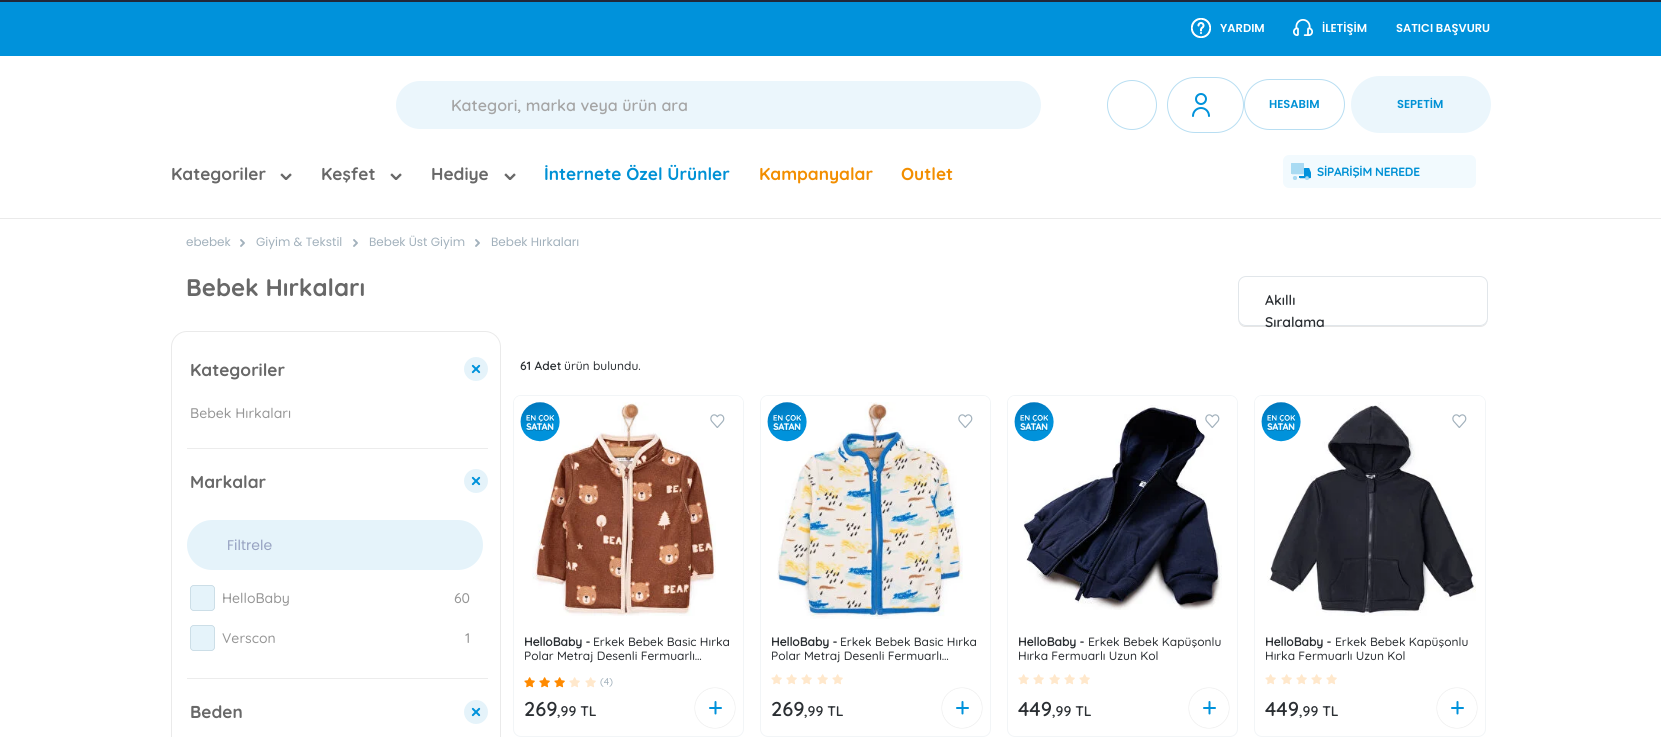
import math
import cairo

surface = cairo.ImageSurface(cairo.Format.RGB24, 1661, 737)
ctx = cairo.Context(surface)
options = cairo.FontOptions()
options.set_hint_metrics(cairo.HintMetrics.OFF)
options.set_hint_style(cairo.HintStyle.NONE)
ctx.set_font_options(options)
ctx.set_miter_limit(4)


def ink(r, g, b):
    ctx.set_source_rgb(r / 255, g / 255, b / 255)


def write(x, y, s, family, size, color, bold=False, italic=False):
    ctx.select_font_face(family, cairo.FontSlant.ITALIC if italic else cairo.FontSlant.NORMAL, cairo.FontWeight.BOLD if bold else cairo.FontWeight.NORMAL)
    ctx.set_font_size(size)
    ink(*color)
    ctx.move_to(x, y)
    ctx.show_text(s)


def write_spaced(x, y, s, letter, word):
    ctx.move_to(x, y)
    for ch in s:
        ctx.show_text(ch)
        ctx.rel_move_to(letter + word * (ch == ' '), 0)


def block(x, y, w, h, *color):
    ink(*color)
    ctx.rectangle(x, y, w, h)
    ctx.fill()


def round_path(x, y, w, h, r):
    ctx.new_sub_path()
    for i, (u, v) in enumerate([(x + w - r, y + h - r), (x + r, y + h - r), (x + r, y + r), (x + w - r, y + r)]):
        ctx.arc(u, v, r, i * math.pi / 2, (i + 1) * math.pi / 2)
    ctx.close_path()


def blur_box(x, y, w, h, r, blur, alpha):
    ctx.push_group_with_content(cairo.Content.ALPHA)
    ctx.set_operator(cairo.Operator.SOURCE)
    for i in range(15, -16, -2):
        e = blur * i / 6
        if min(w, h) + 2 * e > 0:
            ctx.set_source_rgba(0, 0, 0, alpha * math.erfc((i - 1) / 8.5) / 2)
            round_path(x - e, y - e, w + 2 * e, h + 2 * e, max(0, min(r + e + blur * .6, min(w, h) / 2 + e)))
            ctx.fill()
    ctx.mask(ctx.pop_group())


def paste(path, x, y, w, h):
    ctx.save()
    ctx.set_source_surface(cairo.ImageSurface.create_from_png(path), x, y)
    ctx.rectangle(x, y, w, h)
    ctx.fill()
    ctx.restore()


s1 = dict(family="Poppins SemiBold", size=11.5, color=(255, 255, 255))
s2 = dict(family="Quicksand SemiBold", size=16, color=(165, 165, 165))
s3 = dict(family="Poppins SemiBold", size=11.5, color=(0, 145, 213))
s4 = dict(family="Quicksand", size=17.25, color=(104, 104, 104), bold=True)
s5 = dict(family="Quicksand", size=17.25, color=(0, 145, 213), bold=True)
s6 = dict(family="Quicksand", size=17.25, color=(242, 142, 0), bold=True)
s7 = dict(family="Poppins", size=12, color=(162, 177, 188))
s8 = dict(family="Quicksand", size=24, color=(104, 104, 104), bold=True)
s9 = dict(family="Quicksand Medium", size=14, color=(150, 150, 150))
s10 = dict(family="Poppins", size=14, color=(151, 162, 193))
s11 = dict(family="Quicksand SemiBold", size=14, color=(43, 47, 51))
s12 = dict(family="Quicksand SemiBold", size=12, color=(43, 47, 51))
s13 = dict(family="Quicksand Medium", size=12, color=(43, 47, 51))
s14 = dict(family="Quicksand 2", size=12, color=(43, 47, 51), bold=True)
s15 = dict(family="Quicksand Medium", size=10, color=(162, 177, 188))
s16 = dict(family="Quicksand SemiBold", size=20, color=(43, 47, 51))

ink(255, 255, 255)
ctx.paint()
block(0, 0, 1661, 2, 33, 39, 56)
block(0, 2, 1661, 54, 0, 146, 219)
paste("pic1.png", 1191, 18, 20, 20)
write(1220, 32, "YARDIM", **s1)
paste("pic2.png", 1293, 19, 20, 17)
write(1322, 32, "İLETİŞİM", **s1)
write(1396, 32, "SATICI BAŞVURU", **s1)
ink(235, 246, 252)
round_path(396, 81, 645, 48, 24)
ctx.fill()
write(451, 111, "Kategori, marka veya ürün ara", **s2)
ctx.new_path()
ctx.arc(1132, 105, 24.5, 0, 2 * math.pi)
ink(184, 222, 242)
ctx.set_line_width(1)
ctx.stroke()
round_path(1167.5, 77.5, 76, 55, 27.5)
ctx.stroke()
paste("pic3.png", 1192, 93, 18, 24)
round_path(1244.5, 79.5, 100, 50, 25)
ctx.stroke()
write(1269, 108, "HESABIM", **s3)
ink(235, 246, 252)
round_path(1351, 76, 140, 57, 28.5)
ctx.fill()
write(1397, 108, "SEPETİM", **s3)
write(171, 180, "Kategoriler", **s4)
paste("pic4.png", 280, 173, 12, 7)
write(321, 180, "Keşfet", **s4)
paste("pic4.png", 390, 173, 12, 7)
write(431, 180, "Hediye", **s4)
paste("pic4.png", 504, 173, 12, 7)
write(544, 180, "İnternete Özel Ürünler", **s5)
write(759, 180, "Kampanyalar", **s6)
write(901, 180, "Outlet", **s6)
ink(242, 250, 254)
round_path(1283, 155, 193, 33, 6)
ctx.fill()
paste("pic5.png", 1291, 163, 20, 17)
ctx.set_font_size(12)
ink(0, 145, 213)
write_spaced(1317, 176, "SİPARİŞİM NEREDE", -0.25, 0)
block(0, 218, 1661, 1, 234, 234, 234)
write(186, 246, "ebebek", **s7)
ctx.new_path()
ctx.move_to(241, 240)
ctx.line_to(244, 243)
ctx.line_to(241, 246)
ctx.set_line_width(1.9)
ctx.set_line_cap(cairo.LineCap.ROUND)
ctx.set_line_join(cairo.LineJoin.ROUND)
ctx.stroke()
write(256, 246, "Giyim & Tekstil", **s7)
ctx.new_path()
ctx.move_to(354, 240)
ctx.line_to(357, 243)
ctx.line_to(354, 246)
ctx.stroke()
write(369, 246, "Bebek Üst Giyim", **s7)
ctx.new_path()
ctx.move_to(476, 240)
ctx.line_to(479, 243)
ctx.line_to(476, 246)
ctx.stroke()
write(491, 246, "Bebek Hırkaları", **s7)
write(186, 296, "Bebek Hırkaları", **s8)
round_path(171.5, 331.5, 329, 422, 15.5)
ink(234, 234, 234)
ctx.set_line_width(1)
ctx.set_line_cap(cairo.LineCap.BUTT)
ctx.set_line_join(cairo.LineJoin.MITER)
ctx.stroke()
write(190, 376, "Kategoriler", **s4)
ink(229, 243, 250)
ctx.new_path()
ctx.arc(476, 369, 12, 0, 2 * math.pi)
ctx.fill()
paste("pic6.png", 471, 364, 10, 10)
block(187, 448, 301, 1, 236, 236, 236)
write(190, 418, "Bebek Hırkaları", **s9)
write(190, 488, "Markalar", **s4)
ink(229, 243, 250)
ctx.new_path()
ctx.arc(476, 481, 12, 0, 2 * math.pi)
ctx.fill()
paste("pic6.png", 471, 476, 10, 10)
round_path(187, 520, 296, 50, 25)
ctx.fill()
write(227, 550, "Filtrele", **s10)
block(187, 678, 301, 1, 236, 236, 236)
ink(229, 243, 250)
round_path(190.4, 585.4, 24.2, 25.2, 3.6)
ctx.fill_preserve()
ink(195, 215, 226)
ctx.set_line_width(0.8)
ctx.stroke()
write(222, 603, "HelloBaby", **s9)
write(454, 603, "60", **s9)
ink(229, 243, 250)
round_path(190.4, 625.4, 24.2, 25.2, 3.6)
ctx.fill_preserve()
ink(195, 215, 226)
ctx.stroke()
write(222, 643, "Verscon", **s9)
write(465, 643, "1", **s9)
write(190, 718, "Beden", **s4)
ink(229, 243, 250)
ctx.new_path()
ctx.arc(476, 712, 12, 0, 2 * math.pi)
ctx.fill()
paste("pic6.png", 471, 707, 10, 10)
ink(230, 230, 230)
ctx.new_path()
ctx.move_to(1238, 318)
ctx.curve_to(1238, 322, 1240, 326, 1244, 327)
ctx.line_to(1480, 327)
ctx.curve_to(1485, 327, 1488, 323, 1488, 318)
ctx.curve_to(1488, 322, 1484, 326, 1480, 326)
ctx.line_to(1246, 326)
ctx.curve_to(1242, 326, 1238, 322, 1238, 318)
ctx.close_path()
ctx.fill()
ink(255, 255, 255)
round_path(1238.5, 276.5, 249, 49, 7.5)
ctx.fill_preserve()
ink(225, 230, 234)
ctx.set_line_width(1)
ctx.stroke()
write(1265, 305, "Akıllı", **s11)
write(1265, 327, "Sıralama", **s11)
write(520, 370, "61 Adet", **s12)
write(564, 370, "ürün bulundu.", **s13)
round_path(513.5, 395.5, 230, 341, 7.5)
ink(242, 245, 247)
ctx.stroke()
ink(255, 255, 255)
ctx.new_path()
ctx.move_to(521, 396)
ctx.line_to(736, 396)
ctx.curve_to(740, 396, 743, 399, 743, 403)
ctx.line_to(743, 625)
ctx.line_to(514, 625)
ctx.line_to(514, 403)
ctx.curve_to(514, 399, 517, 396, 521, 396)
ctx.close_path()
ctx.fill()
paste("pic9.png", 532, 402, 184, 214)
paste("pic7.png", 710, 414, 15, 14)
paste("pic8.png", 520, 402, 40, 40)
write(524, 646, "HelloBaby -", **s14)
write(593, 646, "Erkek Bebek Basic Hırka", **s13)
write(524, 660, "Polar Metraj Desenli Fermuarlı…", **s13)
paste("pic10.png", 524, 677, 11, 11)
paste("pic10.png", 539, 677, 11, 11)
paste("pic10.png", 554, 677, 11, 11)
paste("pic11.png", 569, 677, 11, 11)
paste("pic11.png", 585, 677, 11, 11)
write(600, 685, "(4)", **s15)
write(524, 716, "269", **s16)
write(557, 716, ",99 TL", **s11)
ink(176, 176, 176)
blur_box(695, 688, 40, 40, 20, 0.5, 0.28)
blur_box(695, 688, 40, 40, 20, 0.5, 0.24)
ink(255, 255, 255)
ctx.arc(715, 708, 20, 0, 2 * math.pi)
ctx.fill()
ctx.new_path()
ctx.move_to(715.5, 713.5)
ctx.line_to(715.5, 702)
ctx.move_to(721, 708)
ctx.line_to(710, 708)
ink(0, 146, 219)
ctx.set_line_width(2)
ctx.set_line_cap(cairo.LineCap.ROUND)
ctx.set_line_join(cairo.LineJoin.ROUND)
ctx.stroke()
round_path(760.5, 395.5, 230, 341, 7.5)
ink(242, 245, 247)
ctx.set_line_width(1)
ctx.set_line_cap(cairo.LineCap.BUTT)
ctx.set_line_join(cairo.LineJoin.MITER)
ctx.stroke()
ink(255, 255, 255)
ctx.new_path()
ctx.move_to(768, 396)
ctx.line_to(983, 396)
ctx.curve_to(987, 396, 990, 399, 990, 403)
ctx.line_to(990, 625)
ctx.line_to(761, 625)
ctx.line_to(761, 403)
ctx.curve_to(761, 399, 764, 396, 768, 396)
ctx.close_path()
ctx.fill()
paste("pic13.png", 777, 402, 186, 217)
paste("pic7.png", 958, 414, 15, 14)
paste("pic12.png", 767, 402, 40, 40)
write(771, 646, "HelloBaby -", **s14)
write(840, 646, "Erkek Bebek Basic Hırka", **s13)
write(771, 660, "Polar Metraj Desenli Fermuarlı…", **s13)
paste("pic11.png", 771, 674, 11, 11)
paste("pic11.png", 786, 674, 11, 11)
paste("pic11.png", 801, 674, 11, 11)
paste("pic11.png", 817, 674, 11, 11)
paste("pic11.png", 832, 674, 11, 11)
write(771, 716, "269", **s16)
write(804, 716, ",99 TL", **s11)
ink(176, 176, 176)
blur_box(942, 688, 40, 40, 20, 0.5, 0.28)
blur_box(942, 688, 40, 40, 20, 0.5, 0.24)
ink(255, 255, 255)
ctx.arc(962, 708, 20, 0, 2 * math.pi)
ctx.fill()
ctx.new_path()
ctx.move_to(962.5, 713.5)
ctx.line_to(962.5, 702)
ctx.move_to(968, 708)
ctx.line_to(957, 708)
ink(0, 146, 219)
ctx.set_line_width(2)
ctx.set_line_cap(cairo.LineCap.ROUND)
ctx.set_line_join(cairo.LineJoin.ROUND)
ctx.stroke()
round_path(1007.5, 395.5, 230, 341, 7.5)
ink(242, 245, 247)
ctx.set_line_width(1)
ctx.set_line_cap(cairo.LineCap.BUTT)
ctx.set_line_join(cairo.LineJoin.MITER)
ctx.stroke()
ink(255, 255, 255)
ctx.new_path()
ctx.move_to(1015, 396)
ctx.line_to(1230, 396)
ctx.curve_to(1234, 396, 1237, 399, 1237, 403)
ctx.line_to(1237, 625)
ctx.line_to(1008, 625)
ctx.line_to(1008, 403)
ctx.curve_to(1008, 399, 1011, 396, 1015, 396)
ctx.close_path()
ctx.fill()
paste("pic15.png", 1023, 405, 199, 205)
ctx.arc(1212, 421, 15.5, 0, 2 * math.pi)
ctx.fill_preserve()
ctx.stroke()
paste("pic7.png", 1205, 414, 15, 14)
paste("pic14.png", 1014, 402, 40, 40)
write(1018, 646, "HelloBaby -", **s14)
write(1088, 646, "Erkek Bebek Kapüşonlu", **s13)
write(1018, 660, "Hırka Fermuarlı Uzun Kol", **s13)
paste("pic11.png", 1018, 674, 11, 11)
paste("pic11.png", 1033, 674, 11, 11)
paste("pic11.png", 1049, 674, 11, 11)
paste("pic11.png", 1064, 674, 11, 11)
paste("pic11.png", 1079, 674, 11, 11)
write(1018, 716, "449", **s16)
write(1052, 716, ",99 TL", **s11)
ink(176, 176, 176)
blur_box(1189, 688, 40, 40, 20, 0.5, 0.28)
blur_box(1189, 688, 40, 40, 20, 0.5, 0.24)
ink(255, 255, 255)
ctx.arc(1209, 708, 20, 0, 2 * math.pi)
ctx.fill()
ctx.new_path()
ctx.move_to(1209.5, 713.5)
ctx.line_to(1209.5, 702)
ctx.move_to(1215, 708)
ctx.line_to(1204, 708)
ink(0, 146, 219)
ctx.set_line_width(2)
ctx.set_line_cap(cairo.LineCap.ROUND)
ctx.set_line_join(cairo.LineJoin.ROUND)
ctx.stroke()
round_path(1254.5, 395.5, 231, 341, 7.5)
ink(242, 245, 247)
ctx.set_line_width(1)
ctx.set_line_cap(cairo.LineCap.BUTT)
ctx.set_line_join(cairo.LineJoin.MITER)
ctx.stroke()
ink(255, 255, 255)
ctx.new_path()
ctx.move_to(1262, 396)
ctx.line_to(1478, 396)
ctx.curve_to(1482, 396, 1485, 399, 1485, 403)
ctx.line_to(1485, 625)
ctx.line_to(1255, 625)
ctx.line_to(1255, 403)
ctx.curve_to(1255, 399, 1258, 396, 1262, 396)
ctx.close_path()
ctx.fill()
paste("pic17.png", 1267, 402, 209, 214)
paste("pic7.png", 1452, 414, 15, 14)
paste("pic16.png", 1261, 402, 40, 40)
write(1265, 646, "HelloBaby -", **s14)
write(1335, 646, "Erkek Bebek Kapüşonlu", **s13)
write(1265, 660, "Hırka Fermuarlı Uzun Kol", **s13)
paste("pic11.png", 1265, 674, 11, 11)
paste("pic11.png", 1281, 674, 11, 11)
paste("pic11.png", 1296, 674, 11, 11)
paste("pic11.png", 1311, 674, 11, 11)
paste("pic11.png", 1326, 674, 11, 11)
write(1265, 716, "449", **s16)
write(1299, 716, ",99 TL", **s11)
ink(176, 176, 176)
blur_box(1437, 688, 40, 40, 20, 0.5, 0.28)
blur_box(1437, 688, 40, 40, 20, 0.5, 0.24)
ink(255, 255, 255)
ctx.arc(1457, 708, 20, 0, 2 * math.pi)
ctx.fill()
ctx.new_path()
ctx.move_to(1457.5, 713.5)
ctx.line_to(1457.5, 702)
ctx.move_to(1463, 708)
ctx.line_to(1452, 708)
ink(0, 146, 219)
ctx.set_line_width(2)
ctx.set_line_cap(cairo.LineCap.ROUND)
ctx.set_line_join(cairo.LineJoin.ROUND)
ctx.stroke()
surface.write_to_png("screenshot.png")
